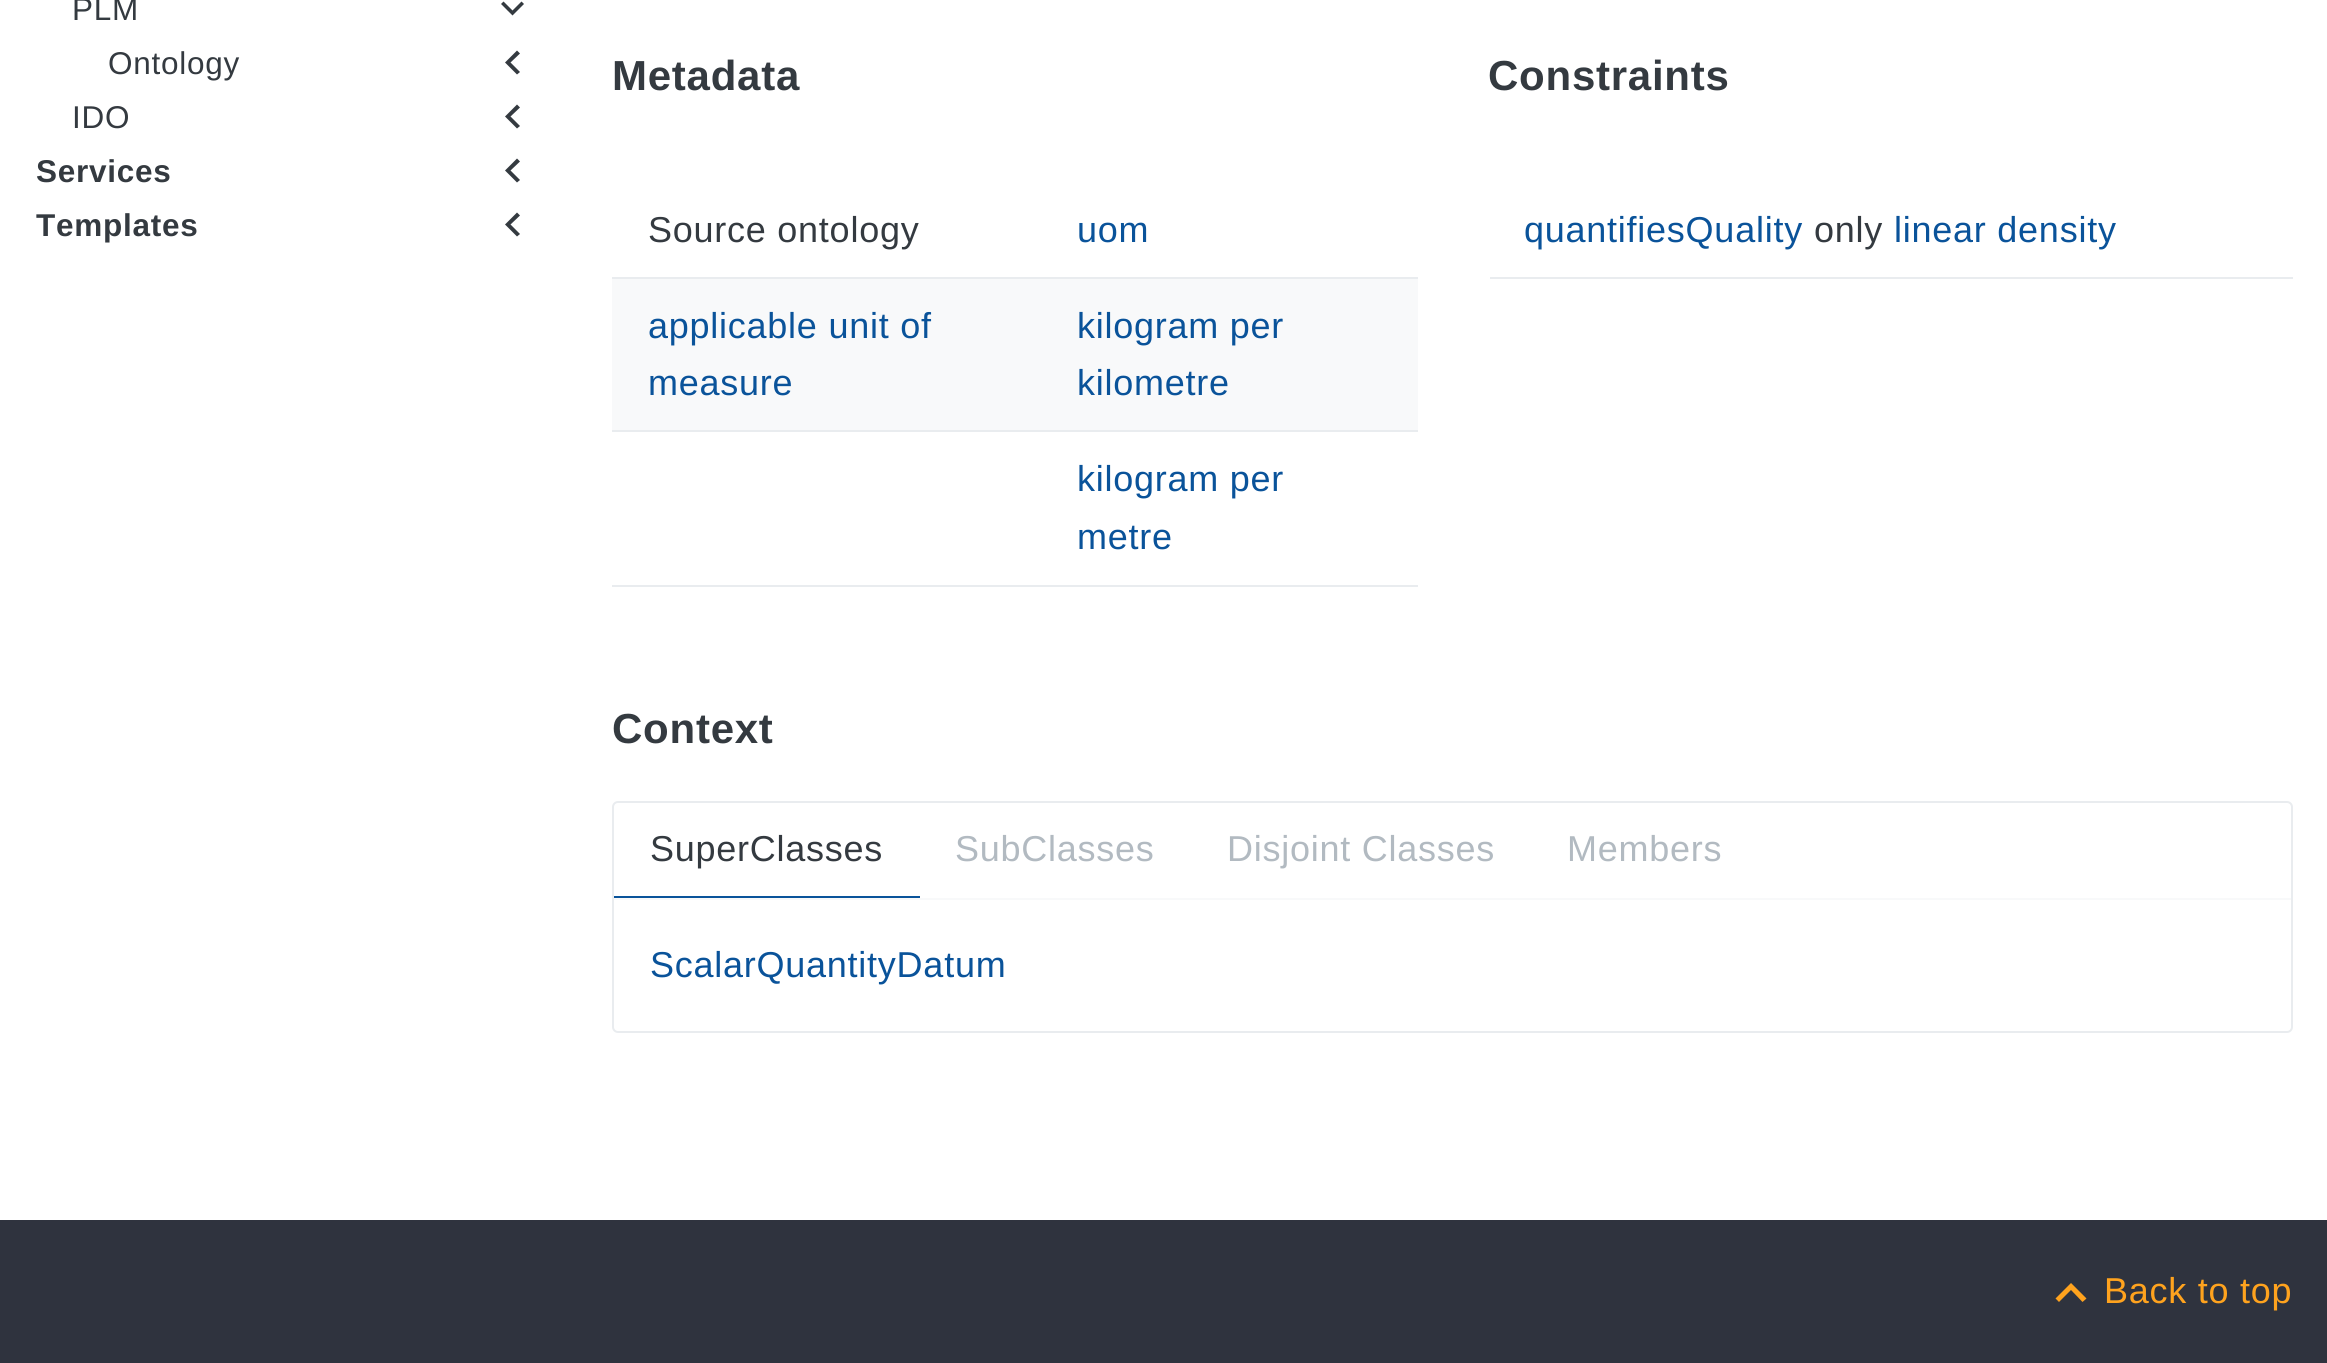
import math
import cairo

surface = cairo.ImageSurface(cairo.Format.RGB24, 2327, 1363)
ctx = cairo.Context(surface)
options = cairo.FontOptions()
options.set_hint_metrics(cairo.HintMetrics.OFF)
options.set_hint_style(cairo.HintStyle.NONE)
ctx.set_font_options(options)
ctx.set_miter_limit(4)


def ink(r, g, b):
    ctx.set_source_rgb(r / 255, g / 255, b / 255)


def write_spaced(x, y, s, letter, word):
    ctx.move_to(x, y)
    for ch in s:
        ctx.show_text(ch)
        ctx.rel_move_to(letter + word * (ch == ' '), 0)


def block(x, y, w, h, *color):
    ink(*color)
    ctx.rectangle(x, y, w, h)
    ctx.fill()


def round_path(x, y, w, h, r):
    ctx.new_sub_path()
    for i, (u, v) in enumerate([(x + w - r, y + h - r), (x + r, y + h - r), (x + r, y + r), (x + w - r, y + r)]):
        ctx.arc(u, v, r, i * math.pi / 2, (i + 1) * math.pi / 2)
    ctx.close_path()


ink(255, 255, 255)
ctx.paint()
ctx.select_font_face("Liberation Sans")
ctx.set_font_size(31.5)
ink(52, 58, 64)
write_spaced(72, 20, "PLM", 0.75, 0)
ctx.new_path()
ctx.move_to(503.5, 1.5)
ctx.line_to(512.5, 10.5)
ctx.line_to(521.5, 1.5)
ctx.line_to(524, 4)
ctx.line_to(512.5, 15.5)
ctx.line_to(501, 4)
ctx.close_path()
ctx.fill()
write_spaced(108, 74, "Ontology", 0.75, 0)
ctx.new_path()
ctx.move_to(520, 72)
ctx.line_to(517, 74.5)
ctx.line_to(505, 62.5)
ctx.line_to(517, 50.5)
ctx.line_to(520, 53.5)
ctx.line_to(510.5, 62.5)
ctx.close_path()
ctx.fill()
write_spaced(72, 128, "IDO", 0.75, 0)
ctx.new_path()
ctx.move_to(520, 126)
ctx.line_to(517, 128.5)
ctx.line_to(505, 116.5)
ctx.line_to(517, 104.5)
ctx.line_to(520, 107.5)
ctx.line_to(510.5, 116.5)
ctx.close_path()
ctx.fill()
ctx.select_font_face("Liberation Sans", cairo.FontSlant.NORMAL, cairo.FontWeight.BOLD)
write_spaced(36, 182, "Services", 0.75, 0)
ctx.new_path()
ctx.move_to(520, 180)
ctx.line_to(517, 182.5)
ctx.line_to(505, 170.5)
ctx.line_to(517, 158.5)
ctx.line_to(520, 161.5)
ctx.line_to(510.5, 170.5)
ctx.close_path()
ctx.fill()
write_spaced(36, 236, "Templates", 0.75, 0)
ctx.new_path()
ctx.move_to(520, 234)
ctx.line_to(517, 236.5)
ctx.line_to(505, 224.5)
ctx.line_to(517, 212.5)
ctx.line_to(520, 215.5)
ctx.line_to(510.5, 224.5)
ctx.close_path()
ctx.fill()
ctx.set_font_size(42)
write_spaced(612, 90, "Metadata", 0.75, 0)
block(612, 277, 806, 2, 233, 236, 239)
ctx.select_font_face("Liberation Sans")
ctx.set_font_size(36)
ink(52, 58, 64)
write_spaced(648, 242, "Source ontology", 0.75, 0)
ink(10, 83, 154)
write_spaced(1077, 242, "uom", 0.75, 0)
block(612, 279, 806, 151, 248, 249, 250)
block(612, 430, 806, 2, 233, 236, 239)
ink(10, 83, 154)
write_spaced(648, 338, "applicable unit of", 0.75, 0)
write_spaced(648, 395, "measure", 0.75, 0)
write_spaced(1077, 338, "kilogram per", 0.75, 0)
write_spaced(1077, 395, "kilometre", 0.75, 0)
block(612, 585, 806, 2, 233, 236, 239)
ink(10, 83, 154)
write_spaced(1077, 491, "kilogram per", 0.75, 0)
write_spaced(1077, 549, "metre", 0.75, 0)
ctx.select_font_face("Liberation Sans", cairo.FontSlant.NORMAL, cairo.FontWeight.BOLD)
ctx.set_font_size(42)
ink(52, 58, 64)
write_spaced(1488, 90, "Constraints", 0.75, 0)
block(1490, 277, 803, 2, 233, 236, 239)
ctx.select_font_face("Liberation Sans")
ctx.set_font_size(36)
ink(10, 83, 154)
write_spaced(1524, 242, "quantifiesQuality", 0.75, 0)
ink(52, 58, 64)
write_spaced(1814, 242, "only", 0.75, 0)
ink(10, 83, 154)
write_spaced(1894, 242, "linear density", 0.75, 0)
ctx.select_font_face("Liberation Sans", cairo.FontSlant.NORMAL, cairo.FontWeight.BOLD)
ctx.set_font_size(42)
ink(52, 58, 64)
write_spaced(612, 743, "Context", 0.75, 0)
round_path(613, 802, 1679, 230, 5)
ink(233, 236, 239)
ctx.stroke()
block(614, 896, 306, 2, 10, 83, 154)
ctx.select_font_face("Liberation Sans")
ctx.set_font_size(36)
ink(52, 58, 64)
write_spaced(650, 861, "SuperClasses", 0.75, 0)
ink(178, 186, 193)
write_spaced(955, 861, "SubClasses", 0.75, 0)
write_spaced(1227, 861, "Disjoint Classes", 0.75, 0)
write_spaced(1567, 861, "Members", 0.75, 0)
block(614, 898, 1677, 2, 248, 249, 250)
ink(10, 83, 154)
write_spaced(650, 977, "ScalarQuantityDatum", 0.75, 0)
block(0, 1220, 2327, 143, 47, 51, 62)
ink(255, 163, 30)
ctx.new_path()
ctx.move_to(2082.5, 1302)
ctx.line_to(2071, 1290)
ctx.line_to(2059, 1302)
ctx.line_to(2055.5, 1298.5)
ctx.line_to(2071, 1283)
ctx.line_to(2086.5, 1298.5)
ctx.close_path()
ctx.fill()
write_spaced(2104, 1303, "Back to top", 0.75, 0)
surface.write_to_png("screenshot.png")
